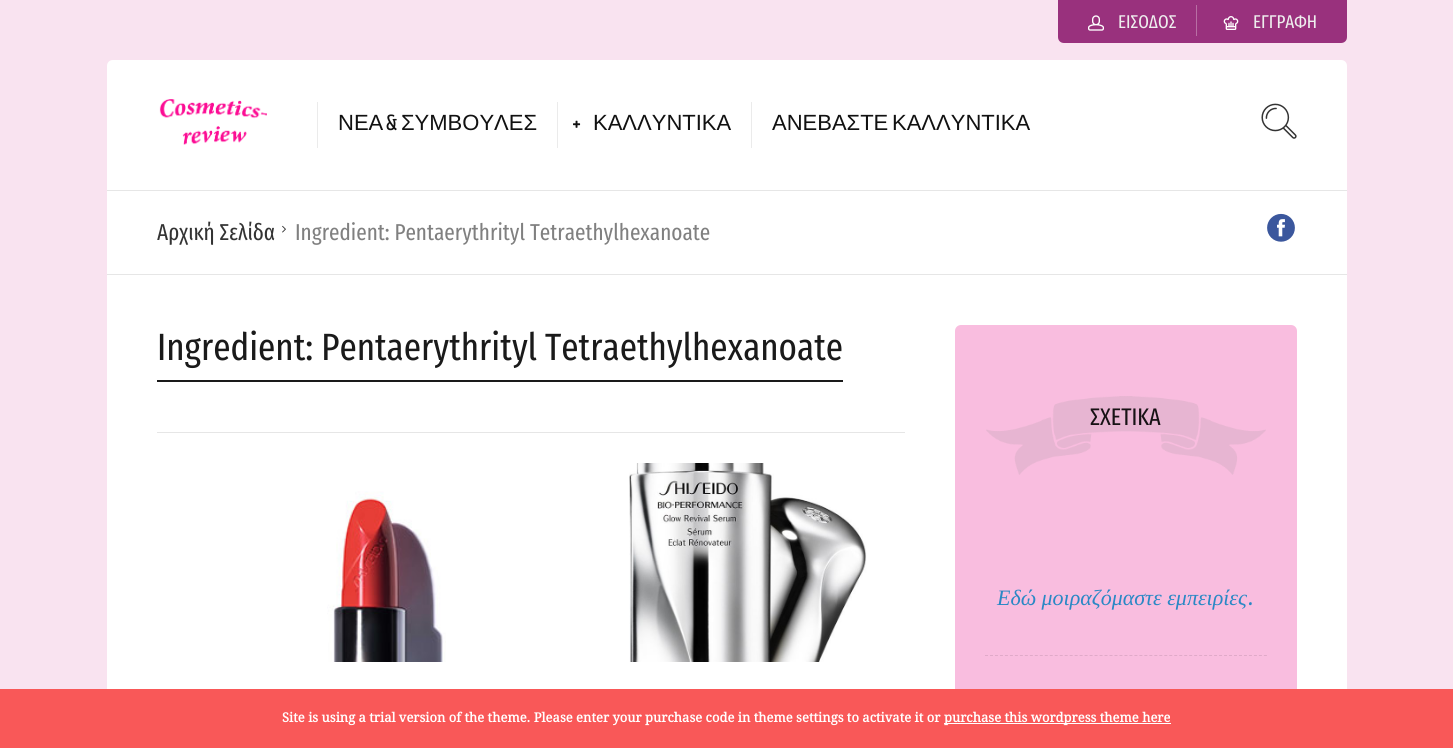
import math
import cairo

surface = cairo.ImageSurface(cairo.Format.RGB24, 1453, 748)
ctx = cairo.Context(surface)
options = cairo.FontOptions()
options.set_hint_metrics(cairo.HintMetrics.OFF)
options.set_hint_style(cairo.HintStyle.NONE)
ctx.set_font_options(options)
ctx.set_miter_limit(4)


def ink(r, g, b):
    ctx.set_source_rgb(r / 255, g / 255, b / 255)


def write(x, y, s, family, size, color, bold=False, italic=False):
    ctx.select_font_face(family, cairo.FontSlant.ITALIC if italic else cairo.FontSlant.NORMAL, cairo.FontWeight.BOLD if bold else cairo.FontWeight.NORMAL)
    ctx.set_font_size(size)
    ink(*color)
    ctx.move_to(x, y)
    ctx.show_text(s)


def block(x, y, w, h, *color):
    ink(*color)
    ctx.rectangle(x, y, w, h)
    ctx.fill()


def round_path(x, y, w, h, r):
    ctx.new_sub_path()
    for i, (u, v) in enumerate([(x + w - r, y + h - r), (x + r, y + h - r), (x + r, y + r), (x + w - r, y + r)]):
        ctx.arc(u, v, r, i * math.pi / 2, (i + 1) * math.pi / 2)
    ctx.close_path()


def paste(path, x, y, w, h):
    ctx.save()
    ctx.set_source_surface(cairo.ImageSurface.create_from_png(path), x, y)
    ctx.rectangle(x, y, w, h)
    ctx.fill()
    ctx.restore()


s1 = dict(family="Fira Sans Extra Condensed", size=18.5, color=(238, 238, 238))
s2 = dict(family="Liberation Sans", size=22, color=(17, 17, 17))
s3 = dict(family="Yanone Kaffeesatz ExtraLight", size=22, color=(17, 17, 17))
s4 = dict(family="Fira Sans Extra Condensed", size=23, color=(51, 51, 51))
s5 = dict(family="Fira Sans Extra Condensed", size=23, color=(128, 128, 128))
s6 = dict(family="Fira Sans Extra Condensed", size=38, color=(26, 26, 26))
s7 = dict(family="Fira Sans Extra Condensed", size=24, color=(23, 18, 21))
s8 = dict(family="Liberation Serif", size=22, color=(42, 136, 197), italic=True)
s9 = dict(family="Droid Serif", size=22, color=(42, 136, 197), italic=True)
s10 = dict(family="Droid Serif", size=13, color=(255, 255, 255), bold=True)

ink(249, 227, 240)
ctx.paint()
ink(153, 49, 125)
ctx.new_path()
ctx.move_to(1058, 0)
ctx.line_to(1347, 0)
ctx.line_to(1347, 37)
ctx.curve_to(1347, 40.5, 1344.5, 43, 1341, 43)
ctx.line_to(1064, 43)
ctx.curve_to(1060.5, 43, 1058, 40.5, 1058, 37)
ctx.close_path()
ctx.fill()
block(1196, 5, 1, 31, 184, 111, 164)
paste("pic1.png", 1088, 15, 16, 16)
write(1118, 28, "ΕΙΣΟΔΟΣ", **s1)
paste("pic2.png", 1223, 16, 16, 14)
write(1253, 28, "ΕΓΓΡΑΦΗ", **s1)
ink(255, 255, 255)
ctx.new_path()
ctx.move_to(113, 60)
ctx.line_to(1341, 60)
ctx.curve_to(1344.5, 60, 1347, 62.5, 1347, 66)
ctx.line_to(1347, 190)
ctx.line_to(107, 190)
ctx.line_to(107, 66)
ctx.curve_to(107, 62.5, 109.5, 60, 113, 60)
ctx.close_path()
ctx.fill()
paste("pic3.png", 159, 99, 108, 46)
block(317, 102, 1, 46, 235, 235, 235)
write(338, 130, "ΝΕΑ", **s2)
write(386, 130, "&", **s3)
write(401, 130, "ΣΥΜΒΟΥΛΕΣ", **s2)
block(557, 102, 1, 46, 235, 235, 235)
paste("pic4.png", 573, 120, 8, 8)
write(593, 130, "ΚΑΛΛΥΝΤΙΚΑ", **s2)
block(751, 102, 1, 46, 235, 235, 235)
write(772, 130, "ΑΝΕΒΑΣΤΕ", **s2)
write(892, 130, "ΚΑΛΛΥΝΤΙΚΑ", **s2)
paste("pic5.png", 1261, 103, 36, 36)
block(107, 191, 1240, 83, 255, 255, 255)
block(107, 190, 1240, 1, 230, 230, 230)
block(107, 274, 1240, 1, 230, 230, 230)
write(157, 240, "Αρχική Σελίδα", **s4)
paste("pic6.png", 282, 225, 4, 8)
write(295, 240, "Ingredient: Pentaerythrityl Tetraethylhexanoate", **s5)
paste("pic7.png", 1267, 213, 28, 29)
block(107, 275, 1240, 414, 255, 255, 255)
block(157, 432, 748, 1, 230, 230, 230)
block(157, 380, 686, 2, 26, 26, 26)
write(157, 360, "Ingredient: Pentaerythrityl Tetraethylhexanoate", **s6)
paste("pic8.png", 327, 491, 119, 171)
paste("pic9.png", 629, 463, 238, 199)
ink(249, 189, 223)
round_path(955, 325, 342, 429, 6)
ctx.fill()
ctx.new_path()
ctx.move_to(985, 655.5)
ctx.line_to(1267, 655.5)
ink(224, 170, 201)
ctx.set_line_width(1)
ctx.set_dash([3, 1.98])
ctx.stroke()
paste("pic10.png", 986, 396, 280, 79)
write(1090, 425, "ΣΧΕΤΙΚΑ", **s7)
write(997, 605, "Εδώ μοιραζόμαστε εμπειρίες", **s8)
write(1248, 605, ".", **s9)
block(0, 689, 1453, 59, 249, 88, 88)
write(282, 722, "Site is using a trial version of the theme. Please enter your purchase code in theme settings to activate it or", **s10)
block(944, 723, 227, 1, 255, 255, 255)
write(944, 722, "purchase this wordpress theme here", **s10)
surface.write_to_png("screenshot.png")
